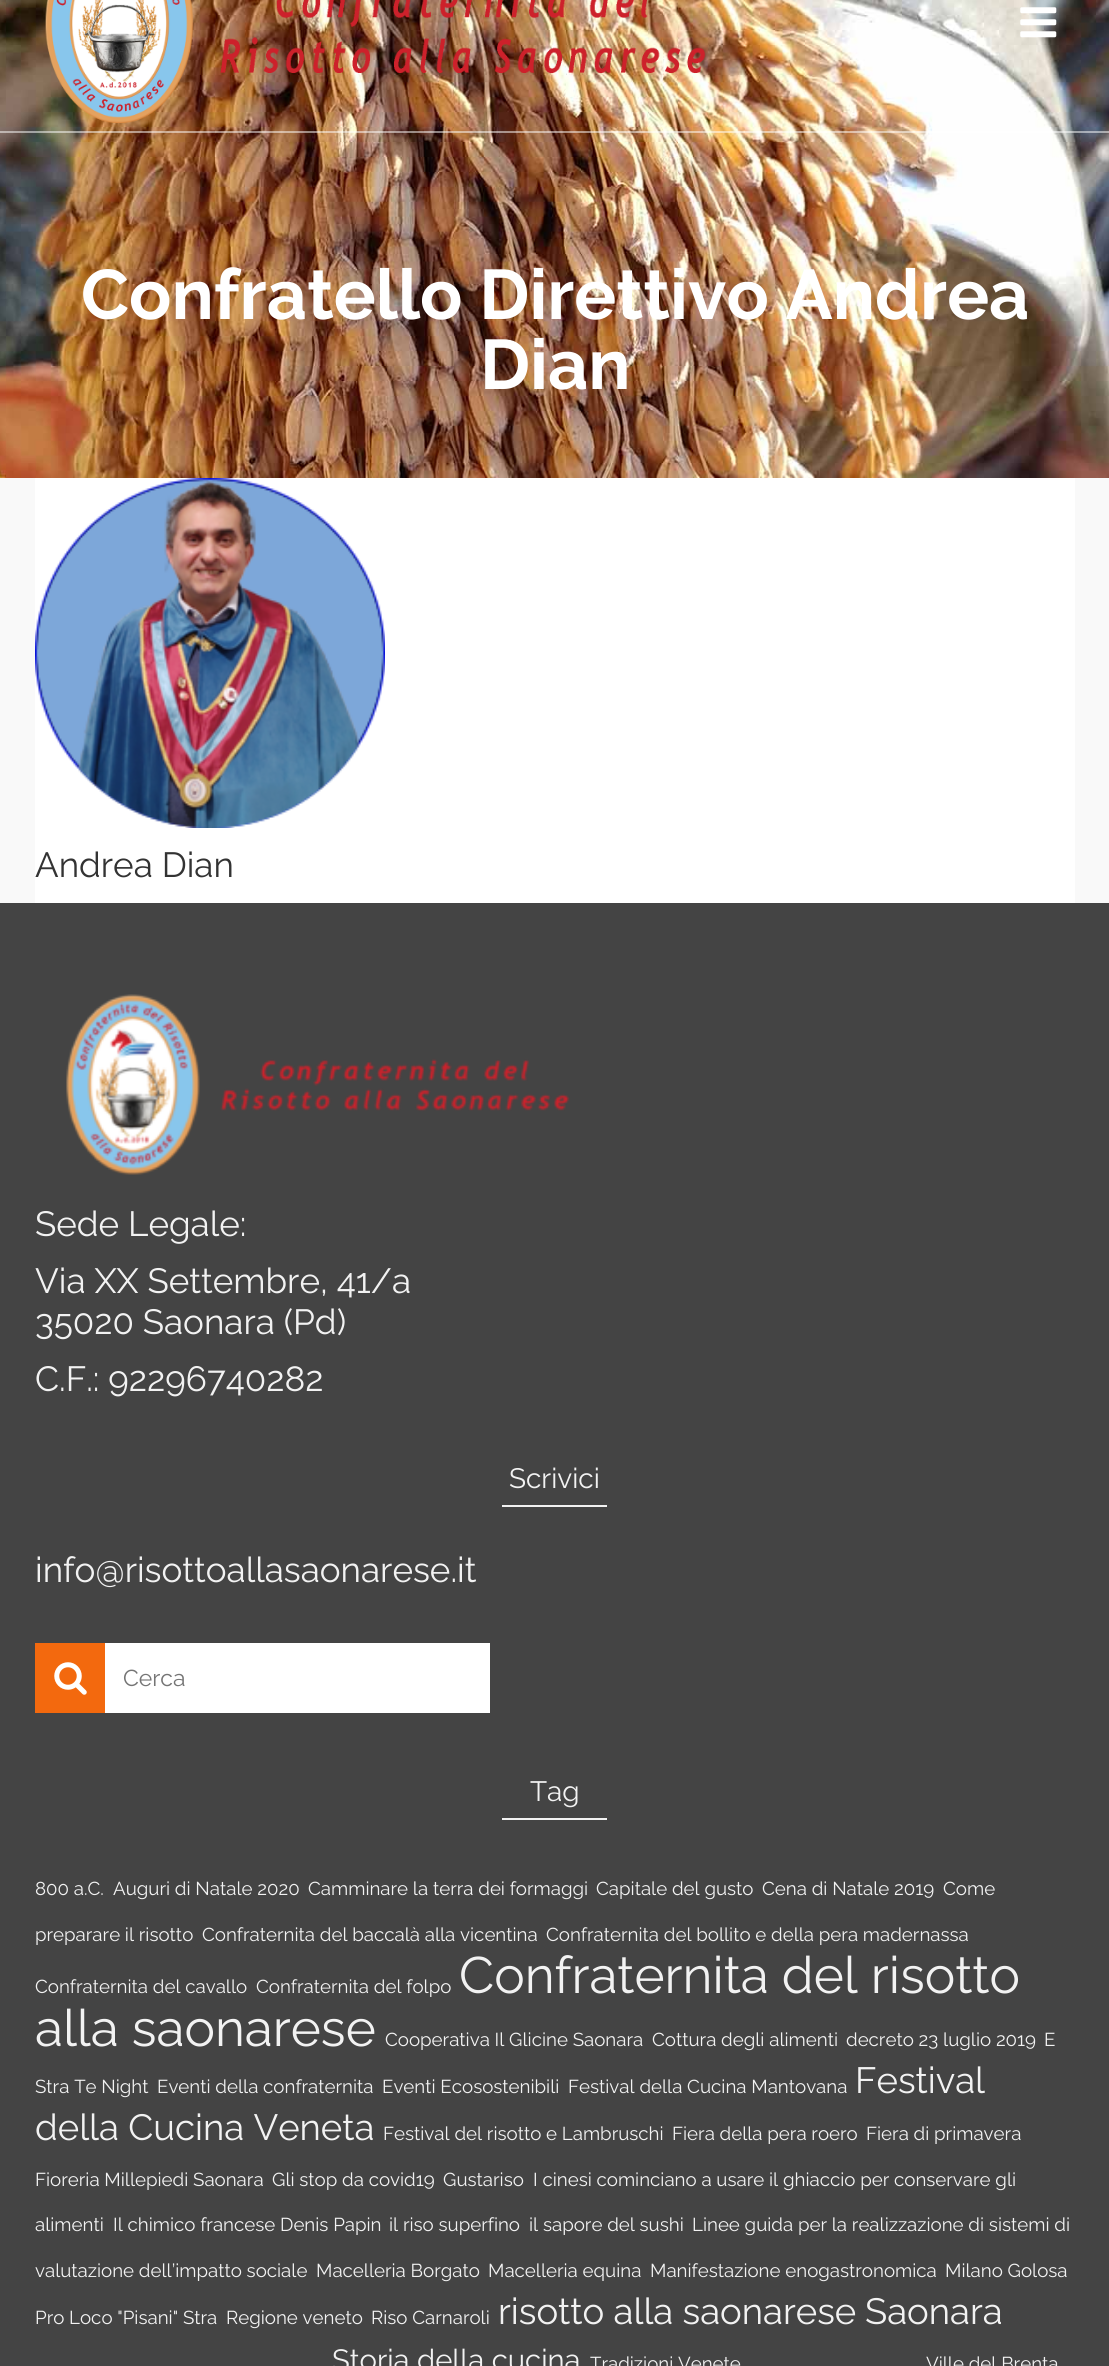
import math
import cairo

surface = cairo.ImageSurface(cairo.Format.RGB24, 1109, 2366)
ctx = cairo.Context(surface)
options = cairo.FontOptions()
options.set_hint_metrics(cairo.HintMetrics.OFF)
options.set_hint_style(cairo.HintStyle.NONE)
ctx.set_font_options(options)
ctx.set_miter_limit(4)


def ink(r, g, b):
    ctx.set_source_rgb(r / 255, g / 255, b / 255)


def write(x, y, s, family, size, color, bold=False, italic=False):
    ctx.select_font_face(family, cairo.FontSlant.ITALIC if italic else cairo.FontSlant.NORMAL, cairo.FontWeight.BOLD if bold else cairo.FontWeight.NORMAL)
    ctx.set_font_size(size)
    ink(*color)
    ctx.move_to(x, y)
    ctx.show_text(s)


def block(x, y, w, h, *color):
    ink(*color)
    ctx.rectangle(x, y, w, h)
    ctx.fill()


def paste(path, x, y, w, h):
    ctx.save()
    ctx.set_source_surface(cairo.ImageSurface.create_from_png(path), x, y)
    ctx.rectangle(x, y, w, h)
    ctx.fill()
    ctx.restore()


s1 = dict(family="Raleway", size=70, color=(255, 255, 255), bold=True)
s2 = dict(family="Raleway", size=35, color=(51, 51, 51))
s3 = dict(family="Raleway", size=35, color=(242, 242, 242))
s4 = dict(family="Raleway", size=28, color=(242, 242, 242))
s5 = dict(family="Raleway", size=23, color=(117, 117, 117))
s6 = dict(family="Raleway", size=18.7, color=(242, 242, 242))
s7 = dict(family="Raleway", size=51.25, color=(242, 242, 242))
s8 = dict(family="Raleway", size=36.5, color=(242, 242, 242))
s9 = dict(family="Raleway", size=29.25, color=(242, 242, 242))

ink(249, 249, 249)
ctx.paint()
paste("pic3.png", 0, 0, 1109, 478)
ctx.set_source_rgba(1, 1, 1, 0.5)
ctx.rectangle(0, 131, 1109, 2)
ctx.fill()
paste("pic1.png", 45, 0, 661, 123)
paste("pic2.png", 1020, 7, 37, 31)
write(81, 319, "Confratello Direttivo Andrea", **s1)
write(480, 389, "Dian", **s1)
block(35, 478, 1040, 425, 255, 255, 255)
paste("pic4.png", 35, 478, 350, 350)
write(35, 877, "Andrea Dian", **s2)
block(0, 903, 1109, 1463, 68, 68, 68)
paste("pic5.png", 66, 994, 504, 181)
write(35, 1236, "Sede Legale:", **s3)
write(35, 1293, "Via XX Settembre, 41/a", **s3)
write(35, 1334, "35020 Saonara (Pd)", **s3)
write(35, 1391, "C.F.: 92296740282", **s3)
write(509, 1488, "Scrivici", **s4)
block(502, 1505, 105, 2, 242, 242, 242)
write(35, 1582, "info@risottoallasaonarese.it", **s3)
block(35, 1643, 70, 70, 243, 105, 14)
paste("pic6.png", 54, 1662, 33, 33)
block(105, 1643, 385, 70, 255, 255, 255)
write(123, 1686, "Cerca", **s5)
write(530, 1801, "Tag", **s4)
block(502, 1818, 105, 2, 242, 242, 242)
write(35, 1895, "800 a.C.", **s6)
write(113, 1895, "Auguri di Natale 2020", **s6)
write(308, 1895, "Camminare la terra dei formaggi", **s6)
write(596, 1895, "Capitale del gusto", **s6)
write(762, 1895, "Cena di Natale 2019", **s6)
write(943, 1895, "Come", **s6)
write(35, 1941, "preparare il risotto", **s6)
write(202, 1941, "Confraternita del baccalà alla vicentina", **s6)
write(546, 1941, "Confraternita del bollito e della pera madernassa", **s6)
write(35, 1993, "Confraternita del cavallo", **s6)
write(256, 1993, "Confraternita del folpo", **s6)
write(459, 1993, "Confraternita del risotto", **s7)
write(35, 2046, "alla saonarese", **s7)
write(385, 2046, "Cooperativa Il Glicine Saonara", **s6)
write(652, 2046, "Cottura degli alimenti", **s6)
write(846, 2046, "decreto 23 luglio 2019", **s6)
write(1044, 2046, "E", **s6)
write(35, 2093, "Stra Te Night", **s6)
write(157, 2093, "Eventi della confraternita", **s6)
write(382, 2093, "Eventi Ecosostenibili", **s6)
write(568, 2093, "Festival della Cucina Mantovana", **s6)
write(855, 2093, "Festival", **s8)
write(35, 2140, "della Cucina Veneta", **s8)
write(383, 2140, "Festival del risotto e Lambruschi", **s6)
write(672, 2140, "Fiera della pera roero", **s6)
write(866, 2140, "Fiera di primavera", **s6)
write(35, 2186, "Fioreria Millepiedi Saonara", **s6)
write(272, 2186, "Gli stop da covid19", **s6)
write(443, 2186, "Gustariso", **s6)
write(533, 2186, "I cinesi cominciano a usare il ghiaccio per conservare gli", **s6)
write(35, 2231, "alimenti", **s6)
write(113, 2231, "Il chimico francese Denis Papin", **s6)
write(389, 2231, "il riso superfino", **s6)
write(529, 2231, "il sapore del sushi", **s6)
write(692, 2231, "Linee guida per la realizzazione di sistemi di", **s6)
write(35, 2277, "valutazione dell’impatto sociale", **s6)
write(316, 2277, "Macelleria Borgato", **s6)
write(488, 2277, "Macelleria equina", **s6)
write(650, 2277, "Manifestazione enogastronomica", **s6)
write(945, 2277, "Milano Golosa", **s6)
write(35, 2324, "Pro Loco \"Pisani\" Stra", **s6)
write(226, 2324, "Regione veneto", **s6)
write(371, 2324, "Riso Carnaroli", **s6)
write(498, 2324, "risotto alla saonarese", **s8)
write(865, 2324, "Saonara", **s8)
write(332, 2370, "Storia della cucina", **s9)
write(590, 2370, "Tradizioni Venete", **s6)
write(926, 2370, "Ville del Brenta", **s6)
surface.write_to_png("screenshot.png")
